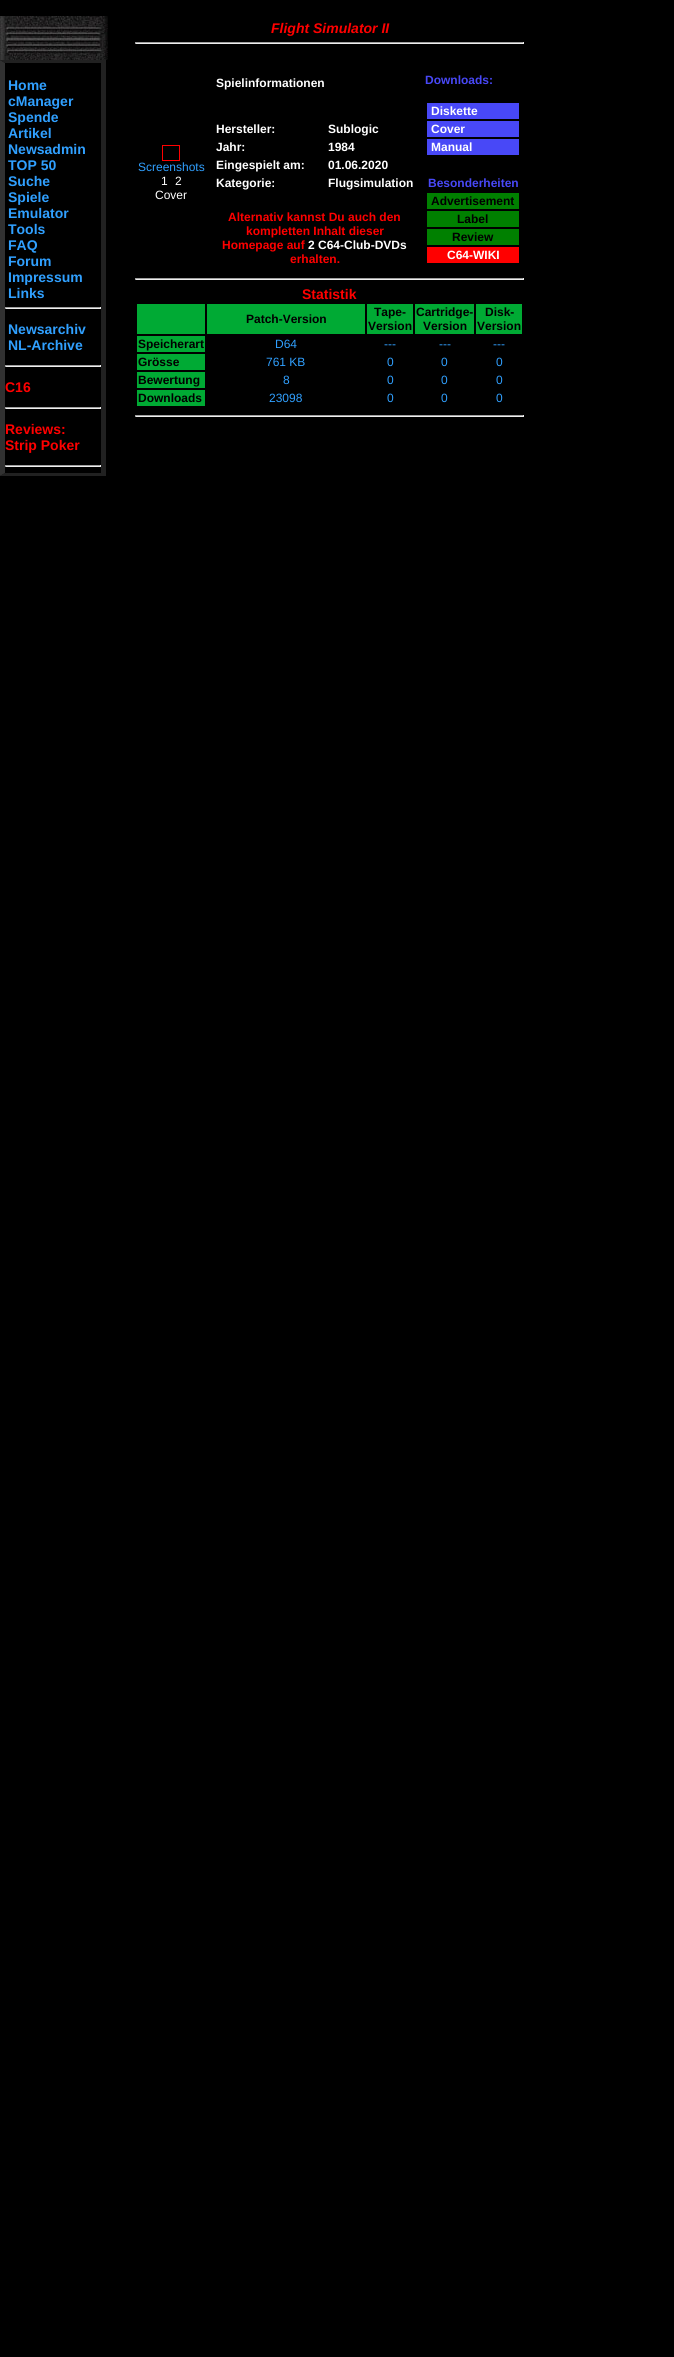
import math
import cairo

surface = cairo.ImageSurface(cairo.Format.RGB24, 674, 2357)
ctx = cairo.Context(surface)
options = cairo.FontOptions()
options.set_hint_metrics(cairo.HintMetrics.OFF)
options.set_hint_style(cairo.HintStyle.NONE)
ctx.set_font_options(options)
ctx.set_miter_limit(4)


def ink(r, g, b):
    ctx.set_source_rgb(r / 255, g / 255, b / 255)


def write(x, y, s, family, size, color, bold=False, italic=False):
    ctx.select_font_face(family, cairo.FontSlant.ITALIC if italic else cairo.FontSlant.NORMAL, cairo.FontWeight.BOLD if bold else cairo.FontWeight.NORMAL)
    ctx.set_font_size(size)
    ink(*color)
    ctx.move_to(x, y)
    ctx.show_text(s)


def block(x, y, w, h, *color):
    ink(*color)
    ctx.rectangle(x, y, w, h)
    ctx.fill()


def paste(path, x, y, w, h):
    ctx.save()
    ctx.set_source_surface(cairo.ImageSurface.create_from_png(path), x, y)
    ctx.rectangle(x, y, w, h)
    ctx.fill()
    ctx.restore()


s1 = dict(family="Liberation Sans", size=14, color=(48, 160, 255), bold=True)
s2 = dict(family="Liberation Sans", size=14, color=(255, 0, 0), bold=True)
s3 = dict(family="Liberation Sans", size=14, color=(255, 0, 0), bold=True, italic=True)
s4 = dict(family="Liberation Sans", size=12, color=(48, 160, 255))
s5 = dict(family="Liberation Sans", size=12, color=(255, 255, 255))
s6 = dict(family="Liberation Sans", size=12, color=(255, 255, 255), bold=True)
s7 = dict(family="Liberation Sans", size=12, color=(255, 0, 0), bold=True)
s8 = dict(family="Liberation Sans", size=12, color=(72, 72, 247), bold=True)
s9 = dict(family="Liberation Sans", size=12, color=(0, 0, 0), bold=True)

ink(0, 0, 0)
ctx.paint()
paste("pic1.png", 0, 16, 108, 44)
ink(33, 33, 33)
ctx.new_path()
ctx.move_to(0, 60)
ctx.line_to(106, 60)
ctx.line_to(101, 63)
ctx.line_to(5, 63)
ctx.close_path()
ctx.fill()
block(101, 60, 5, 416, 33, 33, 33)
ctx.new_path()
ctx.move_to(106, 476)
ctx.line_to(0, 476)
ctx.line_to(5, 473)
ctx.line_to(101, 473)
ctx.close_path()
ctx.fill()
ink(49, 49, 49)
ctx.new_path()
ctx.move_to(0, 476)
ctx.line_to(0, 60)
ctx.line_to(5, 63)
ctx.line_to(5, 473)
ctx.close_path()
ctx.fill()
write(8, 90, "Home", **s1)
write(8, 106, "cManager", **s1)
write(8, 122, "Spende", **s1)
write(8, 138, "Artikel", **s1)
write(8, 154, "Newsadmin", **s1)
write(8, 170, "TOP 50", **s1)
write(8, 186, "Suche", **s1)
write(8, 202, "Spiele", **s1)
write(8, 218, "Emulator", **s1)
write(8, 234, "Tools", **s1)
write(8, 250, "FAQ", **s1)
write(8, 266, "Forum", **s1)
write(8, 282, "Impressum", **s1)
write(8, 298, "Links", **s1)
block(5, 307, 96, 1, 159, 159, 159)
block(100, 307, 1, 2, 238, 238, 238)
block(5, 308, 96, 1, 238, 238, 238)
block(5, 307, 1, 2, 159, 159, 159)
write(8, 334, "Newsarchiv", **s1)
write(8, 350, "NL-Archive", **s1)
block(5, 365, 96, 1, 159, 159, 159)
block(100, 365, 1, 2, 238, 238, 238)
block(5, 366, 96, 1, 238, 238, 238)
block(5, 365, 1, 2, 159, 159, 159)
write(5, 392, "C16", **s2)
block(5, 407, 96, 1, 159, 159, 159)
block(100, 407, 1, 2, 238, 238, 238)
block(5, 408, 96, 1, 238, 238, 238)
block(5, 407, 1, 2, 159, 159, 159)
write(5, 434, "Reviews:", **s2)
write(5, 450, "Strip Poker", **s2)
block(5, 465, 96, 1, 159, 159, 159)
block(100, 465, 1, 2, 238, 238, 238)
block(5, 466, 96, 1, 238, 238, 238)
block(5, 465, 1, 2, 159, 159, 159)
write(271, 33, "Flight Simulator II", **s3)
block(135, 42, 389, 1, 159, 159, 159)
block(523, 42, 1, 2, 238, 238, 238)
block(135, 43, 389, 1, 238, 238, 238)
block(135, 42, 1, 2, 159, 159, 159)
ctx.rectangle(162.5, 145.5, 17, 15)
ink(255, 0, 0)
ctx.set_line_width(1)
ctx.stroke()
write(138, 171, "Screenshots", **s4)
write(161, 185, "1", **s5)
write(175, 185, "2", **s5)
write(155, 199, "Cover", **s5)
write(216, 87, "Spielinformationen", **s6)
write(216, 133, "Hersteller:", **s6)
write(328, 133, "Sublogic", **s6)
write(216, 151, "Jahr:", **s6)
write(328, 151, "1984", **s6)
write(216, 169, "Eingespielt am:", **s6)
write(328, 169, "01.06.2020", **s6)
write(216, 187, "Kategorie:", **s6)
write(328, 187, "Flugsimulation", **s6)
write(228, 221, "Alternativ kannst Du auch den", **s7)
write(246, 235, "kompletten Inhalt dieser", **s7)
write(222, 249, "Homepage auf", **s7)
write(308, 249, "2 C64-Club-DVDs", **s6)
write(290, 263, "erhalten.", **s7)
write(425, 84, "Downloads:", **s8)
block(427, 103, 92, 16, 72, 72, 247)
write(431, 115, "Diskette", **s6)
block(427, 121, 92, 16, 72, 72, 247)
write(431, 133, "Cover", **s6)
block(427, 139, 92, 16, 72, 72, 247)
write(431, 151, "Manual", **s6)
write(428, 187, "Besonderheiten", **s8)
block(427, 193, 92, 16, 0, 128, 0)
write(431, 205, "Advertisement", **s9)
block(427, 211, 92, 16, 0, 128, 0)
write(457, 223, "Label", **s9)
block(427, 229, 92, 16, 0, 128, 0)
write(452, 241, "Review", **s9)
block(427, 247, 92, 16, 255, 0, 0)
write(447, 259, "C64-WIKI", **s6)
block(135, 278, 389, 1, 159, 159, 159)
block(523, 278, 1, 2, 238, 238, 238)
block(135, 279, 389, 1, 238, 238, 238)
block(135, 278, 1, 2, 159, 159, 159)
write(302, 299, "Statistik", **s2)
block(137, 304, 68, 30, 0, 170, 52)
block(207, 304, 158, 30, 0, 170, 52)
write(246, 323, "Patch-Version", **s9)
block(367, 304, 46, 30, 0, 170, 52)
write(374, 316, "Tape-", **s9)
write(368, 330, "Version", **s9)
block(415, 304, 59, 30, 0, 170, 52)
write(416, 316, "Cartridge-", **s9)
write(423, 330, "Version", **s9)
block(476, 304, 46, 30, 0, 170, 52)
write(485, 316, "Disk-", **s9)
write(477, 330, "Version", **s9)
block(137, 336, 68, 16, 0, 170, 52)
write(138, 348, "Speicherart", **s9)
write(275, 348, "D64", **s4)
write(384, 348, "---", **s4)
write(439, 348, "---", **s4)
write(493, 348, "---", **s4)
block(137, 354, 68, 16, 0, 170, 52)
write(138, 366, "Grösse", **s9)
write(266, 366, "761 KB", **s4)
write(387, 366, "0", **s4)
write(441, 366, "0", **s4)
write(496, 366, "0", **s4)
block(137, 372, 68, 16, 0, 170, 52)
write(138, 384, "Bewertung", **s9)
write(283, 384, "8", **s4)
write(387, 384, "0", **s4)
write(441, 384, "0", **s4)
write(496, 384, "0", **s4)
block(137, 390, 68, 16, 0, 170, 52)
write(138, 402, "Downloads", **s9)
write(269, 402, "23098", **s4)
write(387, 402, "0", **s4)
write(441, 402, "0", **s4)
write(496, 402, "0", **s4)
block(135, 415, 389, 1, 159, 159, 159)
block(523, 415, 1, 2, 238, 238, 238)
block(135, 416, 389, 1, 238, 238, 238)
block(135, 415, 1, 2, 159, 159, 159)
surface.write_to_png("screenshot.png")
